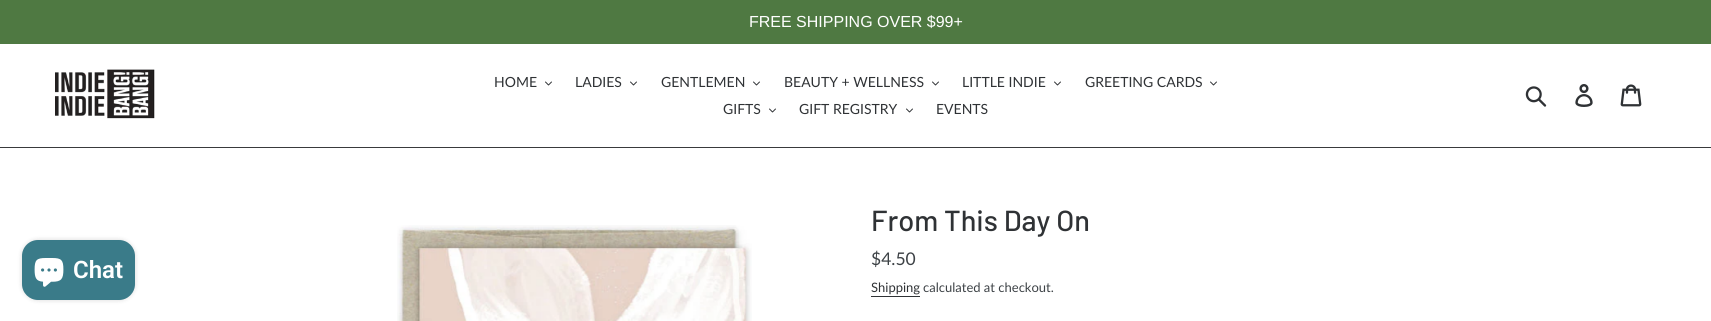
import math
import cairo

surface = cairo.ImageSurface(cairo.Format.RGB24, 1711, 321)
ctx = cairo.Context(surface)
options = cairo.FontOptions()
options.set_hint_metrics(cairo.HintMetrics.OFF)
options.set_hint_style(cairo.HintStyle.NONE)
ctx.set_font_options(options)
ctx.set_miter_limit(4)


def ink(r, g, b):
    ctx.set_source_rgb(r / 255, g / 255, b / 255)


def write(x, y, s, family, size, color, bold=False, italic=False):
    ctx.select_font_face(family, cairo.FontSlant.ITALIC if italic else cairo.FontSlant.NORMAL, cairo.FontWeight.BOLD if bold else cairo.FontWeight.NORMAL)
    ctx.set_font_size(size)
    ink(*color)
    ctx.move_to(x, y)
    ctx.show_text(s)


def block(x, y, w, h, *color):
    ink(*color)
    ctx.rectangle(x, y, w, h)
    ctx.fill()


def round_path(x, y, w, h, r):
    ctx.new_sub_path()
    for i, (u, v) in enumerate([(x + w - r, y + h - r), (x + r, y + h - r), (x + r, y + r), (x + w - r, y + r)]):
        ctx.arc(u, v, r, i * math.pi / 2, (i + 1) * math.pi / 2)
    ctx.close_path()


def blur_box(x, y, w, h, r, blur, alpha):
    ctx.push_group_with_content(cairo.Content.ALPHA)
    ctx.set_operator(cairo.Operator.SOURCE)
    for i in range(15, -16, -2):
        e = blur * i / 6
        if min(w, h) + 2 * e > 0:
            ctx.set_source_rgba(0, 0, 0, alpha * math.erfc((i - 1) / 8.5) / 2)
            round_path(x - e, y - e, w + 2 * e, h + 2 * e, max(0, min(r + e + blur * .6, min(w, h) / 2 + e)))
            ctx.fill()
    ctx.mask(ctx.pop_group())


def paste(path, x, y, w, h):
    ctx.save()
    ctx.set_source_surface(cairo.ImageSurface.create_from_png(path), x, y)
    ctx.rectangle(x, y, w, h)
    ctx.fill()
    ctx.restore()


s1 = dict(family="Liberation Sans", size=16, color=(255, 255, 255))
s2 = dict(family="Lato", size=14, color=(47, 50, 53))
s3 = dict(family="Roboto SemiBold", size=24, color=(255, 255, 255))
s4 = dict(family="Barlow Medium", size=29, color=(47, 50, 53))
s5 = dict(family="Lato", size=17.5, color=(61, 66, 70))
s6 = dict(family="Lato", size=13, color=(47, 50, 53))
s7 = dict(family="Lato", size=13, color=(61, 66, 70))

ink(255, 255, 255)
ctx.paint()
block(0, 0, 1711, 44, 79, 121, 66)
write(749, 27, "FREE SHIPPING OVER $99+", **s1)
block(0, 147, 1711, 1, 57, 58, 60)
paste("pic1.png", 55, 69, 100, 50)
write(494, 87, "HOME", **s2)
paste("pic2.png", 545, 81, 7, 5)
write(575, 87, "LADIES", **s2)
paste("pic2.png", 630, 81, 7, 5)
write(661, 87, "GENTLEMEN", **s2)
paste("pic2.png", 753, 81, 7, 5)
write(784, 87, "BEAUTY + WELLNESS", **s2)
paste("pic2.png", 932, 81, 7, 5)
write(962, 87, "LITTLE INDIE", **s2)
paste("pic2.png", 1054, 81, 7, 5)
write(1085, 87, "GREETING CARDS", **s2)
paste("pic2.png", 1210, 81, 7, 5)
write(723, 114, "GIFTS", **s2)
paste("pic2.png", 769, 108, 7, 5)
write(799, 114, "GIFT REGISTRY", **s2)
paste("pic2.png", 906, 108, 7, 5)
write(936, 114, "EVENTS", **s2)
paste("pic3.png", 1525, 86, 22, 21)
paste("pic4.png", 1575, 84, 18, 23)
paste("pic5.png", 1620, 84, 22, 23)
ink(0, 0, 0)
blur_box(22, 240, 113, 60, 16, 2.5, 0.15)
ink(58, 123, 137)
round_path(22, 240, 113, 60, 16)
ctx.fill()
paste("pic6.png", 34, 258, 30, 29)
write(73, 278, "Chat", **s3)
paste("pic7.png", 397, 225, 355, 96)
write(871, 231, "From This Day On", **s4)
write(871, 265, "$4.50", **s5)
write(871, 292, "Shipping", **s6)
block(871, 296, 49, 1, 47, 50, 53)
write(923, 292, "calculated at checkout.", **s7)
surface.write_to_png("screenshot.png")
